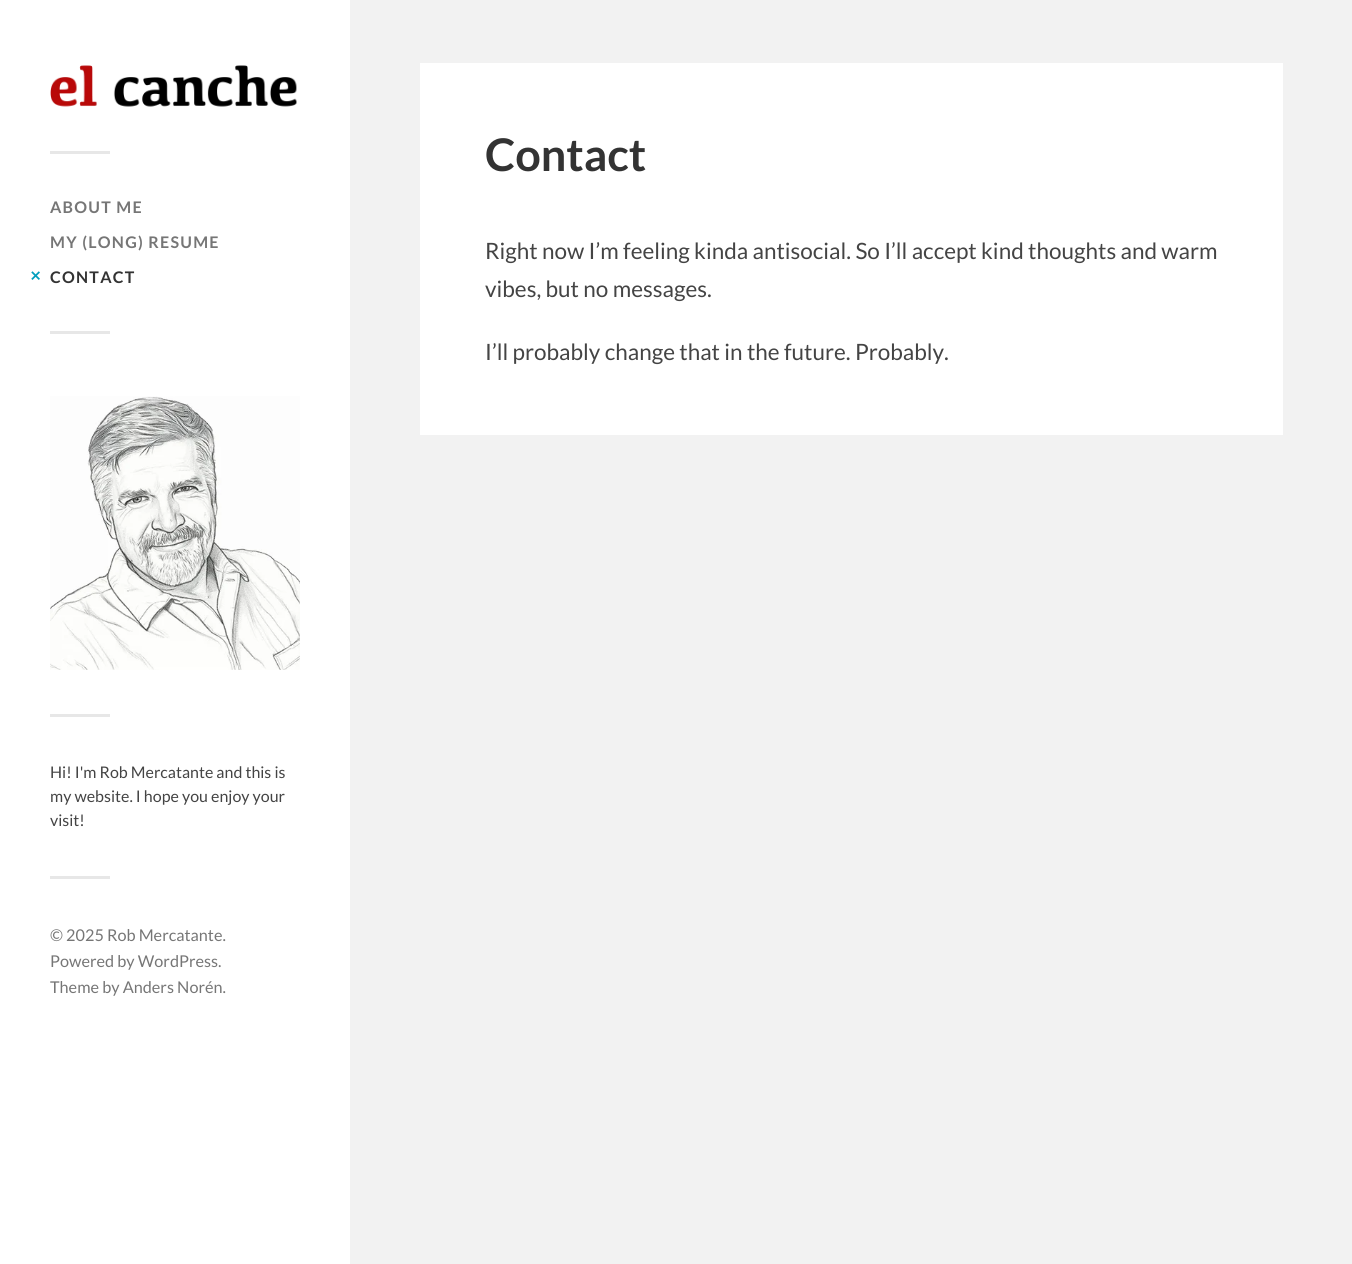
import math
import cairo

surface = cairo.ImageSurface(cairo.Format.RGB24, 1352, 1264)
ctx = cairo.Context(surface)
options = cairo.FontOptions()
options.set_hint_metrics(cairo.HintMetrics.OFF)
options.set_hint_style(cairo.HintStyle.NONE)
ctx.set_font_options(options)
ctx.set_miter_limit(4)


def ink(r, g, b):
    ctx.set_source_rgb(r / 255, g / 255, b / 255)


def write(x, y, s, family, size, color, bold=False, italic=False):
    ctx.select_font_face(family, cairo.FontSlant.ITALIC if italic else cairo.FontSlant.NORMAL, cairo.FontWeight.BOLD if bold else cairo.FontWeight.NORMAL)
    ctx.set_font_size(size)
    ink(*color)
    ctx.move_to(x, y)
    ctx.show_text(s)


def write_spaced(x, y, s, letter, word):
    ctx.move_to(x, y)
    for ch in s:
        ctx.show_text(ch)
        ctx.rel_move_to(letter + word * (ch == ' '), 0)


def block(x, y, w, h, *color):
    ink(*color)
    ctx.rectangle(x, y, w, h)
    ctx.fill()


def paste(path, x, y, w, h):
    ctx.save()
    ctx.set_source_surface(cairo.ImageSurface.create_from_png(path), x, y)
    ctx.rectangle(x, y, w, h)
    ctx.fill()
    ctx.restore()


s1 = dict(family="Lato", size=16, color=(68, 68, 68))
s2 = dict(family="Lato", size=16.25, color=(118, 118, 118))
s3 = dict(family="Lato", size=45, color=(51, 51, 51), bold=True)
s4 = dict(family="Lato", size=22.5, color=(68, 68, 68))

ink(242, 242, 242)
ctx.paint()
block(0, 0, 350, 1264, 255, 255, 255)
paste("pic1.png", 50, 65, 247, 42)
block(50, 151, 60, 3, 231, 231, 231)
ctx.select_font_face("Lato", cairo.FontSlant.NORMAL, cairo.FontWeight.BOLD)
ctx.set_font_size(16)
ink(118, 118, 118)
write_spaced(50, 213, "ABOUT ME", 1.25, 0)
write_spaced(50, 248, "MY (LONG) RESUME", 1.25, 0)
paste("pic2.png", 31, 271, 9, 9)
ink(51, 51, 51)
write_spaced(50, 283, "CONTACT", 1.25, 0)
block(50, 331, 60, 3, 231, 231, 231)
paste("pic3.png", 50, 396, 250, 274)
block(50, 714, 60, 3, 231, 231, 231)
write(50, 778, "Hi! I'm Rob Mercatante and this is", **s1)
write(50, 802, "my website. I hope you enjoy your", **s1)
write(50, 826, "visit!", **s1)
block(50, 876, 60, 3, 231, 231, 231)
write(50, 941, "© 2025 Rob Mercatante.", **s2)
write(50, 967, "Powered by WordPress.", **s2)
write(50, 993, "Theme by Anders Norén.", **s2)
block(420, 63, 863, 372, 255, 255, 255)
write(485, 171, "Contact", **s3)
write(485, 259, "Right now I’m feeling kinda antisocial. So I’ll accept kind thoughts and warm", **s4)
write(485, 297, "vibes, but no messages.", **s4)
write(485, 360, "I’ll probably change that in the future. Probably.", **s4)
surface.write_to_png("screenshot.png")
